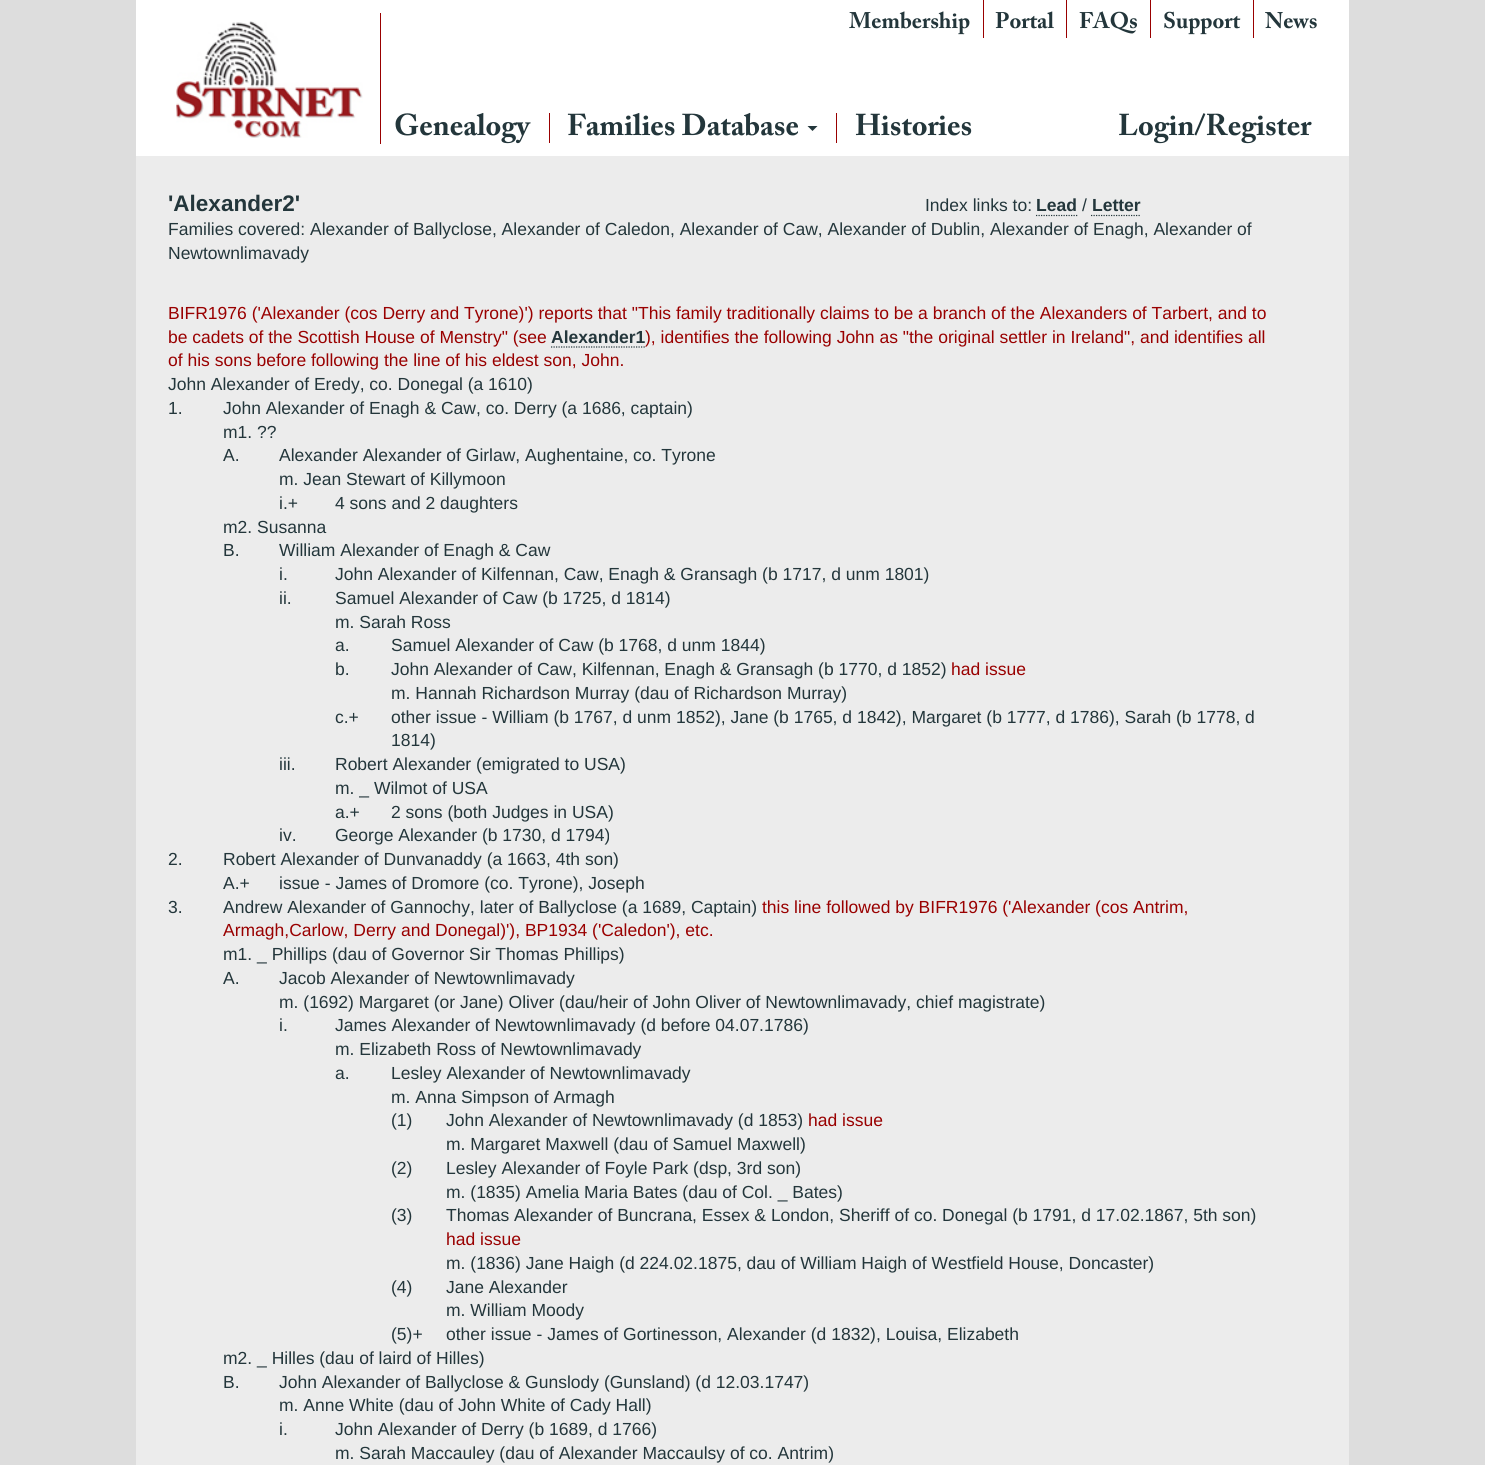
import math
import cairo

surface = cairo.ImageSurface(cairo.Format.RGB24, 1485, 1465)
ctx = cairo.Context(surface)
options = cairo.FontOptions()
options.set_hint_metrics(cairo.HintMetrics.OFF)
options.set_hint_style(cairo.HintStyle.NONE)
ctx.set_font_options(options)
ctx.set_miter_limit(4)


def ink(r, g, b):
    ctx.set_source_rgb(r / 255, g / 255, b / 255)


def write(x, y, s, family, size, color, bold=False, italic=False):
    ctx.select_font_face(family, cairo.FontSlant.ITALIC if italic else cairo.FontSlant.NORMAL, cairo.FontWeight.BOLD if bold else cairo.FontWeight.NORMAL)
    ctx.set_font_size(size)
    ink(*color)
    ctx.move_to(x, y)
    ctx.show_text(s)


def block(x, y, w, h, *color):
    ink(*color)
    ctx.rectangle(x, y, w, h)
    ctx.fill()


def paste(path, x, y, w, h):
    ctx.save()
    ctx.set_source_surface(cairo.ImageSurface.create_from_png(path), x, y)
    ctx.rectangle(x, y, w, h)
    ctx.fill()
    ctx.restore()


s1 = dict(family="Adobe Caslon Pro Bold", size=22.5, color=(35, 54, 59), bold=True)
s2 = dict(family="Adobe Caslon Pro Bold", size=30, color=(35, 54, 59), bold=True)
s3 = dict(family="Liberation Sans", size=22.5, color=(35, 54, 59), bold=True)
s4 = dict(family="Liberation Sans", size=17.5, color=(35, 54, 59))
s5 = dict(family="Liberation Sans", size=17.5, color=(35, 54, 59), bold=True)
s6 = dict(family="Liberation Sans", size=17.5, color=(153, 0, 0))

ink(221, 221, 221)
ctx.paint()
block(136, 0, 1213, 156, 255, 255, 255)
write(849, 28, "Membership", **s1)
block(983, 0, 1, 38, 153, 0, 0)
write(995, 28, "Portal", **s1)
block(1066, 0, 1, 38, 153, 0, 0)
write(1079, 28, "FAQs", **s1)
block(1150, 0, 1, 38, 153, 0, 0)
write(1163, 28, "Support", **s1)
block(1253, 0, 1, 38, 153, 0, 0)
write(1265, 28, "News", **s1)
block(380, 13, 1, 131, 153, 0, 0)
paste("pic1.png", 176, 21, 187, 117)
write(394, 135, "Genealogy", **s2)
block(549, 113, 1, 30, 153, 0, 0)
write(567, 135, "Families Database", **s2)
ctx.new_path()
ctx.move_to(807.5, 126)
ctx.line_to(817.5, 126)
ctx.line_to(812.5, 131)
ctx.close_path()
ctx.fill()
block(836, 113, 1, 30, 153, 0, 0)
write(855, 135, "Histories", **s2)
write(1118, 135, "Login/Register", **s2)
block(136, 156, 1213, 1309, 236, 236, 236)
write(168, 211, "'Alexander2'", **s3)
write(925, 211, "Index links to:", **s4)
write(1036, 211, "Lead", **s5)
ctx.new_path()
ctx.move_to(1036, 215.5)
ctx.line_to(1077.5, 215.5)
ctx.set_line_width(1.2)
ctx.set_dash([1.25, 1.25])
ctx.stroke()
write(1082, 211, "/", **s4)
write(1092, 211, "Letter", **s5)
ctx.new_path()
ctx.move_to(1091, 215.5)
ctx.line_to(1140, 215.5)
ctx.stroke()
write(168, 235, "Families covered: Alexander of Ballyclose, Alexander of Caledon, Alexander of Caw, Alexander of Dublin, Alexander of Enagh, Alexander of", **s4)
write(168, 259, "Newtownlimavady", **s4)
write(168, 319, "BIFR1976 ('Alexander (cos Derry and Tyrone)') reports that \"This family traditionally claims to be a branch of the Alexanders of Tarbert, and to", **s6)
write(168, 343, "be cadets of the Scottish House of Menstry\" (see", **s6)
write(551, 343, "Alexander1", **s5)
write(645, 343, "), identifies the following John as \"the original settler in Ireland\", and identifies all", **s6)
ctx.new_path()
ctx.move_to(551, 347)
ctx.line_to(645, 347)
ink(35, 54, 59)
ctx.stroke()
write(168, 366, "of his sons before following the line of his eldest son, John.", **s6)
write(168, 390, "John Alexander of Eredy, co. Donegal (a 1610)", **s4)
write(168, 414, "1.", **s4)
write(223, 414, "John Alexander of Enagh & Caw, co. Derry (a 1686, captain)", **s4)
write(223, 438, "m1. ??", **s4)
write(223, 461, "A.", **s4)
write(279, 461, "Alexander Alexander of Girlaw, Aughentaine, co. Tyrone", **s4)
write(279, 485, "m. Jean Stewart of Killymoon", **s4)
write(279, 509, "i.+", **s4)
write(335, 509, "4 sons and 2 daughters", **s4)
write(223, 533, "m2. Susanna", **s4)
write(223, 556, "B.", **s4)
write(279, 556, "William Alexander of Enagh & Caw", **s4)
write(279, 580, "i.", **s4)
write(335, 580, "John Alexander of Kilfennan, Caw, Enagh & Gransagh (b 1717, d unm 1801)", **s4)
write(279, 604, "ii.", **s4)
write(335, 604, "Samuel Alexander of Caw (b 1725, d 1814)", **s4)
write(335, 628, "m. Sarah Ross", **s4)
write(335, 651, "a.", **s4)
write(391, 651, "Samuel Alexander of Caw (b 1768, d unm 1844)", **s4)
write(335, 675, "b.", **s4)
write(391, 675, "John Alexander of Caw, Kilfennan, Enagh & Gransagh (b 1770, d 1852)", **s4)
write(951, 675, "had issue", **s6)
write(391, 699, "m. Hannah Richardson Murray (dau of Richardson Murray)", **s4)
write(335, 723, "c.+", **s4)
write(391, 723, "other issue - William (b 1767, d unm 1852), Jane (b 1765, d 1842), Margaret (b 1777, d 1786), Sarah (b 1778, d", **s4)
write(391, 746, "1814)", **s4)
write(279, 770, "iii.", **s4)
write(335, 770, "Robert Alexander (emigrated to USA)", **s4)
write(335, 794, "m. _ Wilmot of USA", **s4)
write(335, 818, "a.+", **s4)
write(391, 818, "2 sons (both Judges in USA)", **s4)
write(279, 841, "iv.", **s4)
write(335, 841, "George Alexander (b 1730, d 1794)", **s4)
write(168, 865, "2.", **s4)
write(223, 865, "Robert Alexander of Dunvanaddy (a 1663, 4th son)", **s4)
write(223, 889, "A.+", **s4)
write(279, 889, "issue - James of Dromore (co. Tyrone), Joseph", **s4)
write(168, 913, "3.", **s4)
write(223, 913, "Andrew Alexander of Gannochy, later of Ballyclose (a 1689, Captain)", **s4)
write(762, 913, "this line followed by BIFR1976 ('Alexander (cos Antrim,", **s6)
write(223, 936, "Armagh,Carlow, Derry and Donegal)'), BP1934 ('Caledon'), etc.", **s6)
write(223, 960, "m1. _ Phillips (dau of Governor Sir Thomas Phillips)", **s4)
write(223, 984, "A.", **s4)
write(279, 984, "Jacob Alexander of Newtownlimavady", **s4)
write(279, 1008, "m. (1692) Margaret (or Jane) Oliver (dau/heir of John Oliver of Newtownlimavady, chief magistrate)", **s4)
write(279, 1031, "i.", **s4)
write(335, 1031, "James Alexander of Newtownlimavady (d before 04.07.1786)", **s4)
write(335, 1055, "m. Elizabeth Ross of Newtownlimavady", **s4)
write(335, 1079, "a.", **s4)
write(391, 1079, "Lesley Alexander of Newtownlimavady", **s4)
write(391, 1103, "m. Anna Simpson of Armagh", **s4)
write(391, 1126, "(1)", **s4)
write(446, 1126, "John Alexander of Newtownlimavady (d 1853)", **s4)
write(808, 1126, "had issue", **s6)
write(446, 1150, "m. Margaret Maxwell (dau of Samuel Maxwell)", **s4)
write(391, 1174, "(2)", **s4)
write(446, 1174, "Lesley Alexander of Foyle Park (dsp, 3rd son)", **s4)
write(446, 1198, "m. (1835) Amelia Maria Bates (dau of Col. _ Bates)", **s4)
write(391, 1221, "(3)", **s4)
write(446, 1221, "Thomas Alexander of Buncrana, Essex & London, Sheriff of co. Donegal (b 1791, d 17.02.1867, 5th son)", **s4)
write(446, 1245, "had issue", **s6)
write(446, 1269, "m. (1836) Jane Haigh (d 224.02.1875, dau of William Haigh of Westfield House, Doncaster)", **s4)
write(391, 1293, "(4)", **s4)
write(446, 1293, "Jane Alexander", **s4)
write(446, 1316, "m. William Moody", **s4)
write(391, 1340, "(5)+", **s4)
write(446, 1340, "other issue - James of Gortinesson, Alexander (d 1832), Louisa, Elizabeth", **s4)
write(223, 1364, "m2. _ Hilles (dau of laird of Hilles)", **s4)
write(223, 1388, "B.", **s4)
write(279, 1388, "John Alexander of Ballyclose & Gunslody (Gunsland) (d 12.03.1747)", **s4)
write(279, 1411, "m. Anne White (dau of John White of Cady Hall)", **s4)
write(279, 1435, "i.", **s4)
write(335, 1435, "John Alexander of Derry (b 1689, d 1766)", **s4)
write(335, 1459, "m. Sarah Maccauley (dau of Alexander Maccaulsy of co. Antrim)", **s4)
surface.write_to_png("screenshot.png")
